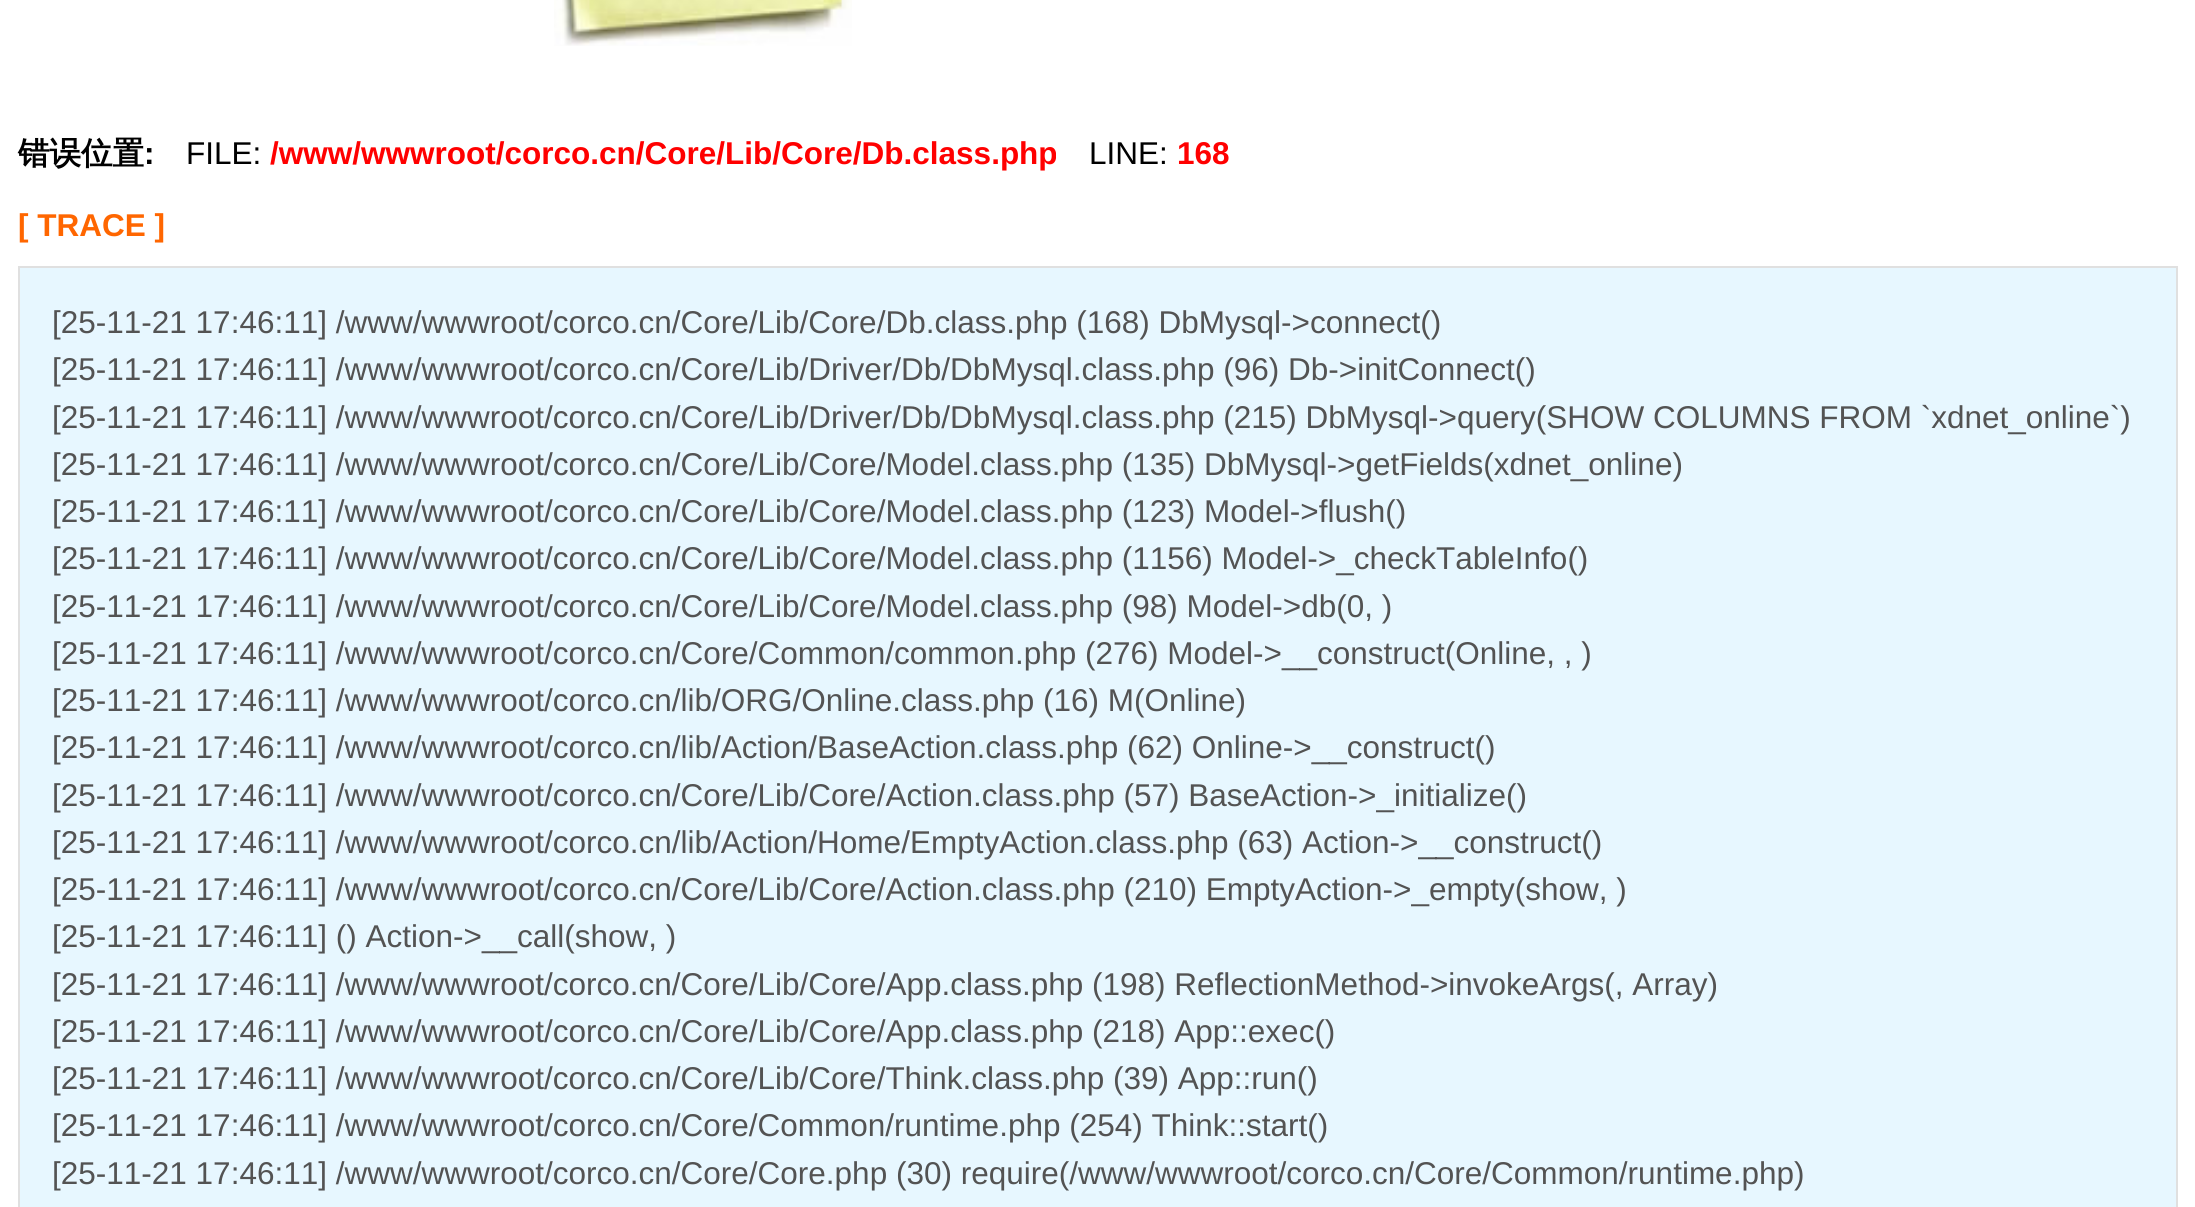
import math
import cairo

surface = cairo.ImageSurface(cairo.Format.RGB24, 2195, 1207)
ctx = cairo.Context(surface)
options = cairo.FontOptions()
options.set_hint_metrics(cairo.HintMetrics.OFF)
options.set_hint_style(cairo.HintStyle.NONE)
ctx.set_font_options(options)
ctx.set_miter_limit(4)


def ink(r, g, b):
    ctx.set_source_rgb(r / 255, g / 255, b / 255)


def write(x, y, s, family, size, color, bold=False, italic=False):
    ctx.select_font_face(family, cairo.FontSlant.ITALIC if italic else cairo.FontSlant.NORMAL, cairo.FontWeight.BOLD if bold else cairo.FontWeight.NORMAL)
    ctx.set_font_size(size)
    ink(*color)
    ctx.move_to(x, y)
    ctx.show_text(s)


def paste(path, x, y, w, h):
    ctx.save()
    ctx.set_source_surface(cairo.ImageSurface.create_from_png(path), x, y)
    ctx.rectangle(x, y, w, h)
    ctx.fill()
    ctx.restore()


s1 = dict(family="WenQuanYi Zen Hei", size=31.5, color=(0, 0, 0), bold=True)
s2 = dict(family="Liberation Sans", size=31.5, color=(0, 0, 0), bold=True)
s3 = dict(family="Liberation Sans", size=31.5, color=(0, 0, 0))
s4 = dict(family="Liberation Sans", size=31.5, color=(255, 0, 0), bold=True)
s5 = dict(family="Liberation Sans", size=31.5, color=(255, 102, 0), bold=True)
s6 = dict(family="Liberation Sans", size=31.5, color=(83, 83, 83))

ink(255, 255, 255)
ctx.paint()
paste("pic1.png", 554, 0, 298, 46)
write(18, 164, "错误位置", **s1)
write(144, 164, ":", **s2)
write(186, 164, "FILE:", **s3)
write(270, 164, "/www/wwwroot/corco.cn/Core/Lib/Core/Db.class.php", **s4)
write(1089, 164, "LINE:", **s3)
write(1177, 164, "168", **s4)
write(18, 236, "[ TRACE ]", **s5)
ink(231, 247, 255)
ctx.rectangle(19, 267, 2158, 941)
ctx.fill_preserve()
ink(224, 224, 224)
ctx.stroke()
write(52, 333, "[25-11-21 17:46:11] /www/wwwroot/corco.cn/Core/Lib/Core/Db.class.php (168) DbMysql->connect()", **s6)
write(52, 380, "[25-11-21 17:46:11] /www/wwwroot/corco.cn/Core/Lib/Driver/Db/DbMysql.class.php (96) Db->initConnect()", **s6)
write(52, 428, "[25-11-21 17:46:11] /www/wwwroot/corco.cn/Core/Lib/Driver/Db/DbMysql.class.php (215) DbMysql->query(SHOW COLUMNS FROM `xdnet_online`)", **s6)
write(52, 475, "[25-11-21 17:46:11] /www/wwwroot/corco.cn/Core/Lib/Core/Model.class.php (135) DbMysql->getFields(xdnet_online)", **s6)
write(52, 522, "[25-11-21 17:46:11] /www/wwwroot/corco.cn/Core/Lib/Core/Model.class.php (123) Model->flush()", **s6)
write(52, 569, "[25-11-21 17:46:11] /www/wwwroot/corco.cn/Core/Lib/Core/Model.class.php (1156) Model->_checkTableInfo()", **s6)
write(52, 617, "[25-11-21 17:46:11] /www/wwwroot/corco.cn/Core/Lib/Core/Model.class.php (98) Model->db(0, )", **s6)
write(52, 664, "[25-11-21 17:46:11] /www/wwwroot/corco.cn/Core/Common/common.php (276) Model->__construct(Online, , )", **s6)
write(52, 711, "[25-11-21 17:46:11] /www/wwwroot/corco.cn/lib/ORG/Online.class.php (16) M(Online)", **s6)
write(52, 758, "[25-11-21 17:46:11] /www/wwwroot/corco.cn/lib/Action/BaseAction.class.php (62) Online->__construct()", **s6)
write(52, 806, "[25-11-21 17:46:11] /www/wwwroot/corco.cn/Core/Lib/Core/Action.class.php (57) BaseAction->_initialize()", **s6)
write(52, 853, "[25-11-21 17:46:11] /www/wwwroot/corco.cn/lib/Action/Home/EmptyAction.class.php (63) Action->__construct()", **s6)
write(52, 900, "[25-11-21 17:46:11] /www/wwwroot/corco.cn/Core/Lib/Core/Action.class.php (210) EmptyAction->_empty(show, )", **s6)
write(52, 947, "[25-11-21 17:46:11] () Action->__call(show, )", **s6)
write(52, 995, "[25-11-21 17:46:11] /www/wwwroot/corco.cn/Core/Lib/Core/App.class.php (198) ReflectionMethod->invokeArgs(, Array)", **s6)
write(52, 1042, "[25-11-21 17:46:11] /www/wwwroot/corco.cn/Core/Lib/Core/App.class.php (218) App::exec()", **s6)
write(52, 1089, "[25-11-21 17:46:11] /www/wwwroot/corco.cn/Core/Lib/Core/Think.class.php (39) App::run()", **s6)
write(52, 1136, "[25-11-21 17:46:11] /www/wwwroot/corco.cn/Core/Common/runtime.php (254) Think::start()", **s6)
write(52, 1184, "[25-11-21 17:46:11] /www/wwwroot/corco.cn/Core/Core.php (30) require(/www/wwwroot/corco.cn/Core/Common/runtime.php)", **s6)
surface.write_to_png("screenshot.png")
